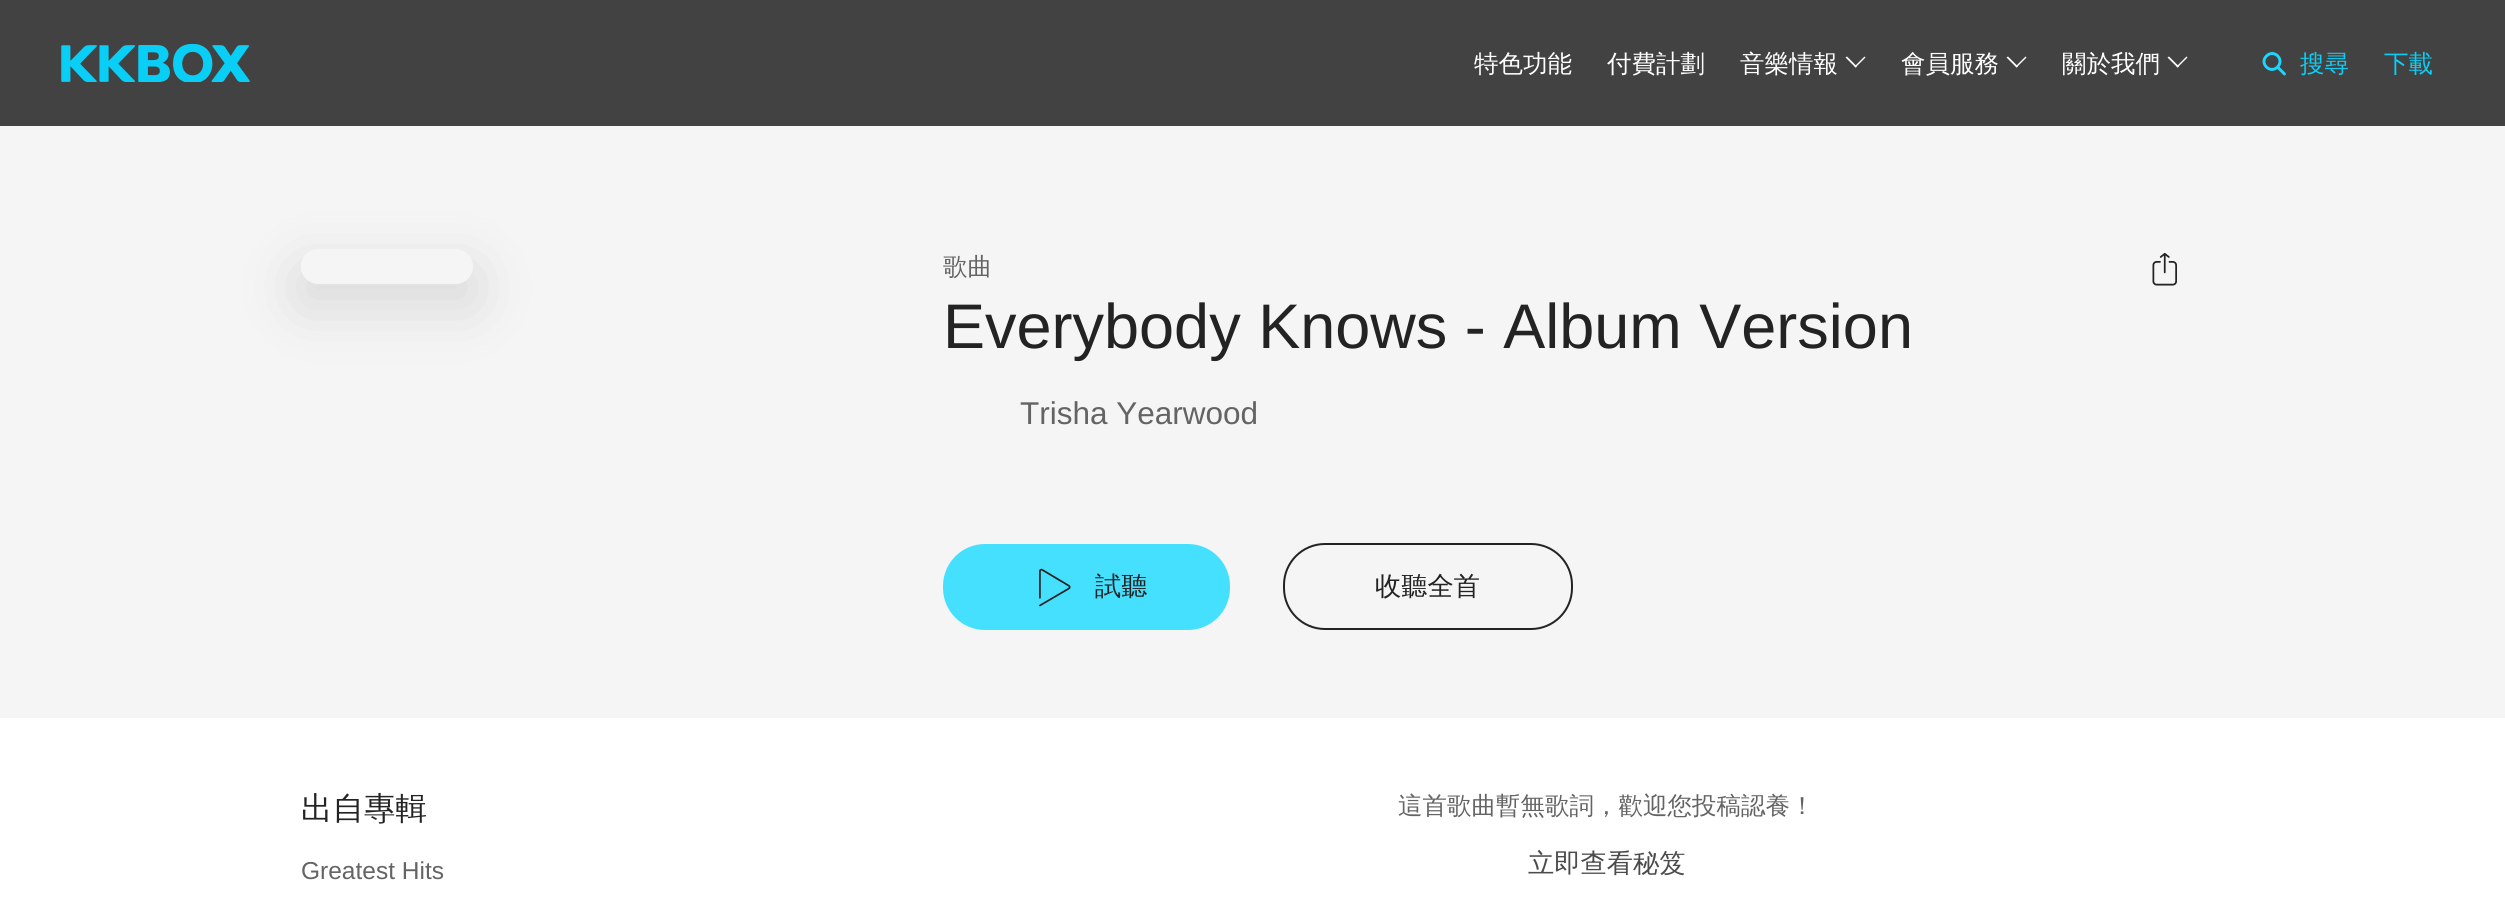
import math
import cairo

surface = cairo.ImageSurface(cairo.Format.RGB24, 2505, 904)
ctx = cairo.Context(surface)
options = cairo.FontOptions()
options.set_hint_metrics(cairo.HintMetrics.OFF)
options.set_hint_style(cairo.HintStyle.NONE)
ctx.set_font_options(options)
ctx.set_miter_limit(4)


def ink(r, g, b):
    ctx.set_source_rgb(r / 255, g / 255, b / 255)


def write(x, y, s, family, size, color, bold=False, italic=False):
    ctx.select_font_face(family, cairo.FontSlant.ITALIC if italic else cairo.FontSlant.NORMAL, cairo.FontWeight.BOLD if bold else cairo.FontWeight.NORMAL)
    ctx.set_font_size(size)
    ink(*color)
    ctx.move_to(x, y)
    ctx.show_text(s)


def block(x, y, w, h, *color):
    ink(*color)
    ctx.rectangle(x, y, w, h)
    ctx.fill()


def round_path(x, y, w, h, r):
    ctx.new_sub_path()
    for i, (u, v) in enumerate([(x + w - r, y + h - r), (x + r, y + h - r), (x + r, y + r), (x + w - r, y + r)]):
        ctx.arc(u, v, r, i * math.pi / 2, (i + 1) * math.pi / 2)
    ctx.close_path()


def blur_box(x, y, w, h, r, blur, alpha):
    ctx.push_group_with_content(cairo.Content.ALPHA)
    ctx.set_operator(cairo.Operator.SOURCE)
    for i in range(15, -16, -2):
        e = blur * i / 6
        if min(w, h) + 2 * e > 0:
            ctx.set_source_rgba(0, 0, 0, alpha * math.erfc((i - 1) / 8.5) / 2)
            round_path(x - e, y - e, w + 2 * e, h + 2 * e, max(0, min(r + e + blur * .6, min(w, h) / 2 + e)))
            ctx.fill()
    ctx.mask(ctx.pop_group())


def paste(path, x, y, w, h):
    ctx.save()
    ctx.set_source_surface(cairo.ImageSurface.create_from_png(path), x, y)
    ctx.rectangle(x, y, w, h)
    ctx.fill()
    ctx.restore()


s1 = dict(family="WenQuanYi Zen Hei Medium", size=24.5, color=(255, 255, 255))
s2 = dict(family="WenQuanYi Zen Hei Medium", size=24.5, color=(9, 206, 246))
s3 = dict(family="WenQuanYi Zen Hei Medium", size=24.5, color=(100, 100, 100))
s4 = dict(family="Liberation Sans", size=63, color=(35, 35, 35))
s5 = dict(family="Liberation Sans", size=31.5, color=(100, 100, 100))
s6 = dict(family="WenQuanYi Zen Hei Medium", size=26.25, color=(35, 35, 35))
s7 = dict(family="WenQuanYi Zen Hei Medium", size=31.5, color=(35, 35, 35))
s8 = dict(family="Liberation Sans", size=24.5, color=(100, 100, 100))
s9 = dict(family="WenQuanYi Zen Hei Medium", size=26.25, color=(75, 75, 75))

ink(255, 255, 255)
ctx.paint()
block(0, 0, 2505, 126, 66, 66, 66)
paste("pic1.png", 61, 44, 189, 38)
write(1474, 72, "特色功能", **s1)
write(1607, 72, "付費計劃", **s1)
write(1740, 72, "音樂情報", **s1)
ctx.new_path()
ctx.move_to(1864.5, 56.5)
ctx.line_to(1865.5, 57.5)
ctx.line_to(1855.5, 67.5)
ctx.line_to(1854.5, 66.5)
ctx.close_path()
ctx.fill()
ctx.new_path()
ctx.move_to(1847, 56.5)
ctx.line_to(1857, 66.5)
ctx.line_to(1855.5, 67.5)
ctx.line_to(1845.5, 57.5)
ctx.close_path()
ctx.fill()
write(1901, 72, "會員服務", **s1)
ctx.new_path()
ctx.move_to(2025.5, 56.5)
ctx.line_to(2026.5, 57.5)
ctx.line_to(2016.5, 67.5)
ctx.line_to(2015.5, 66.5)
ctx.close_path()
ctx.fill()
ctx.new_path()
ctx.move_to(2008, 56.5)
ctx.line_to(2018, 66.5)
ctx.line_to(2016.5, 67.5)
ctx.line_to(2006.5, 57.5)
ctx.close_path()
ctx.fill()
write(2062, 72, "關於我們", **s1)
ctx.new_path()
ctx.move_to(2186.5, 56.5)
ctx.line_to(2187.5, 57.5)
ctx.line_to(2177.5, 67.5)
ctx.line_to(2176.5, 66.5)
ctx.close_path()
ctx.fill()
ctx.new_path()
ctx.move_to(2169, 56.5)
ctx.line_to(2179, 66.5)
ctx.line_to(2177.5, 67.5)
ctx.line_to(2167.5, 57.5)
ctx.close_path()
ctx.fill()
ctx.new_path()
ctx.move_to(2266.5, 56)
ctx.curve_to(2274, 48.5, 2285, 59.5, 2277.5, 67)
ctx.curve_to(2270, 74.5, 2259, 63, 2266.5, 56)
ctx.close_path()
ctx.move_to(2278, 67.5)
ctx.line_to(2284.5, 74)
ink(29, 214, 255)
ctx.set_line_width(2.9)
ctx.set_line_cap(cairo.LineCap.ROUND)
ctx.set_line_join(cairo.LineJoin.ROUND)
ctx.stroke()
write(2300, 72, "搜尋", **s2)
write(2384, 72, "下載", **s2)
block(0, 126, 2505, 592, 245, 245, 245)
ctx.save()
ctx.set_fill_rule(cairo.FillRule.EVEN_ODD)
ctx.new_path()
ctx.move_to(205, 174)
ctx.line_to(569, 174)
ctx.line_to(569, 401)
ctx.line_to(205, 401)
ctx.close_path()
ctx.move_to(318.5, 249)
ctx.line_to(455.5, 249)
ctx.curve_to(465, 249, 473, 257, 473, 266.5)
ctx.curve_to(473, 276, 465, 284, 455.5, 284)
ctx.line_to(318.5, 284)
ctx.curve_to(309, 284, 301, 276, 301, 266.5)
ctx.curve_to(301, 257, 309, 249, 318.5, 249)
ctx.close_path()
ctx.clip()
ink(0, 0, 0)
blur_box(301, 270, 172, 35, 17.5, 31.5, 0.12)
ctx.restore()
write(943, 275, "歌曲", **s3)
paste("pic2.png", 2152, 252, 25, 34)
write(943, 348, "Everybody Knows - Album Version", **s4)
write(1020, 424, "Trisha Yearwood", **s5)
ink(70, 224, 255)
round_path(943, 544, 287, 86, 42)
ctx.fill()
paste("pic3.png", 1039, 568, 32, 39)
write(1095, 595, "試聽", **s6)
round_path(1284, 544, 288, 85, 41)
ctx.set_line_width(2)
ctx.set_line_cap(cairo.LineCap.BUTT)
ctx.set_line_join(cairo.LineJoin.MITER)
ctx.stroke()
write(1375, 595, "收聽全首", **s6)
write(301, 819, "出自專輯", **s7)
write(301, 879, "Greatest Hits", **s8)
write(1398, 814, "這首歌曲暫無歌詞，歡迎您投稿認養！", **s3)
write(1528, 872, "立即查看秘笈", **s9)
surface.write_to_png("screenshot.png")
